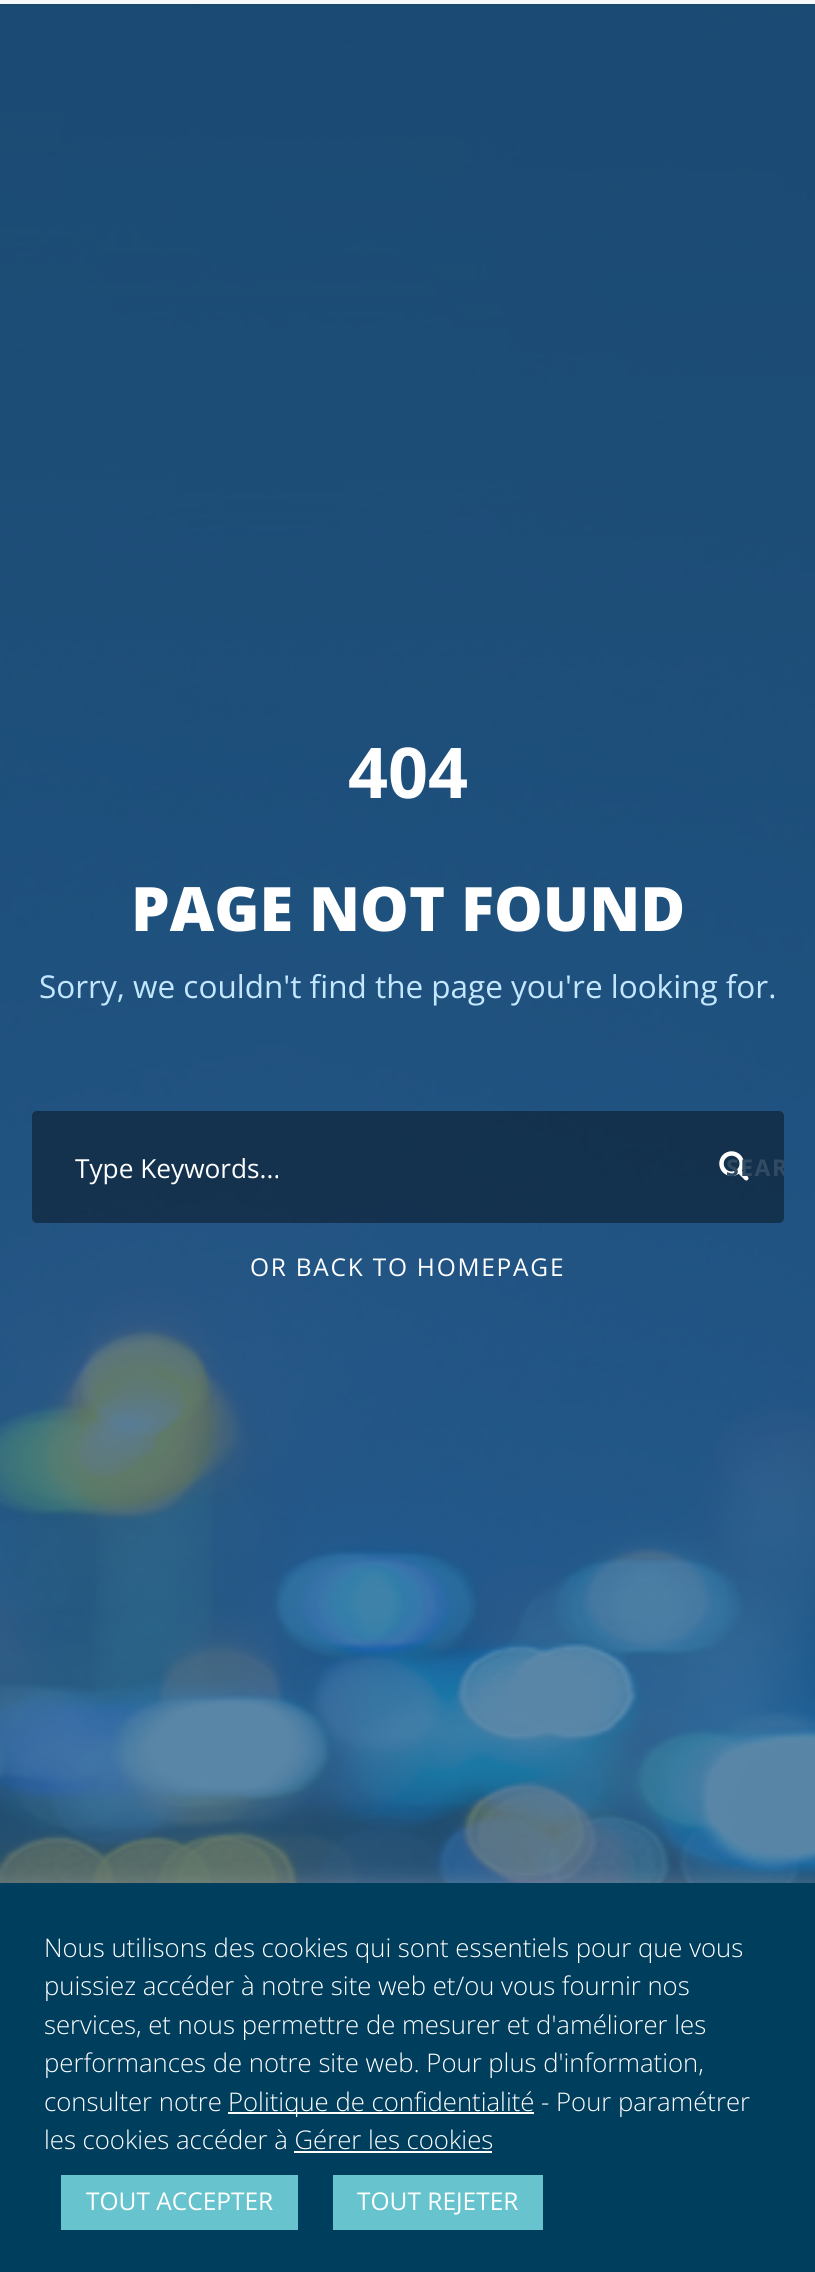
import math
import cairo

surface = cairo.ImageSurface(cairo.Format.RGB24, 815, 2272)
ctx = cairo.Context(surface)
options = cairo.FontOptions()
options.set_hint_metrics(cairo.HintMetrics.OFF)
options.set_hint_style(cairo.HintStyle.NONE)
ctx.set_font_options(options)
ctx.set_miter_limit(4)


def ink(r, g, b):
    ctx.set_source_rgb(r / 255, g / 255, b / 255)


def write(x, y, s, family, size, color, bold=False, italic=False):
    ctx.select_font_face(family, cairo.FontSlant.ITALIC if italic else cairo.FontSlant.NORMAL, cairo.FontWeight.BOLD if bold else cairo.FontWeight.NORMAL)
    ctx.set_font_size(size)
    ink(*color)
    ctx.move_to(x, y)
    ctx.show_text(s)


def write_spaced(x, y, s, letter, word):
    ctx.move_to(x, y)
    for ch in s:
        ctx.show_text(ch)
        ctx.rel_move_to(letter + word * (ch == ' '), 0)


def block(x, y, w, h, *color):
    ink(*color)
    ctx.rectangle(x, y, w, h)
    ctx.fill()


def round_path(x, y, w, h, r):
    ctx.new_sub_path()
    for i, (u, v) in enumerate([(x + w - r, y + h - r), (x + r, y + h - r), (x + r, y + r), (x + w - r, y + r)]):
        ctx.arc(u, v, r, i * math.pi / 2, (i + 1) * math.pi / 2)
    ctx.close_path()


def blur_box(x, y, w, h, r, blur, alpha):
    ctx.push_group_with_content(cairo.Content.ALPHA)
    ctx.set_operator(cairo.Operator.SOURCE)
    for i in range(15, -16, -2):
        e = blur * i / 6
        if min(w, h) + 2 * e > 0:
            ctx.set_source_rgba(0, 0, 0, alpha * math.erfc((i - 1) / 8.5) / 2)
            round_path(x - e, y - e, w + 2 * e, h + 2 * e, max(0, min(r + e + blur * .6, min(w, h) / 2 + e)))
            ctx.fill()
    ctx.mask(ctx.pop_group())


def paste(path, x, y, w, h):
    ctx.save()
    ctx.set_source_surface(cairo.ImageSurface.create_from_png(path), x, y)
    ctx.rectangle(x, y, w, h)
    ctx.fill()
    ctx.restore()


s1 = dict(family="Open Sans", size=70, color=(255, 255, 255), bold=True)
s2 = dict(family="Open Sans ExtraBold", size=61.25, color=(255, 255, 255))
s3 = dict(family="Open Sans", size=31.5, color=(195, 231, 255))
s4 = dict(family="Open Sans", size=26.25, color=(255, 255, 255))
s5 = dict(family="Open Sans Light", size=25.7, color=(255, 255, 255))
s6 = dict(family="Open Sans", size=24.5, color=(255, 255, 255))

ink(35, 97, 142)
ctx.paint()
paste("pic1.png", 0, 4, 815, 1879)
ink(0, 0, 0)
blur_box(0, -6, 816, 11, 0, 2, 0.1)
block(0, 0, 815, 4, 247, 248, 249)
write(348, 798, "404", **s1)
write(131, 931, "PAGE NOT FOUND", **s2)
write(39, 998, "Sorry, we couldn't find the page you're looking for.", **s3)
ctx.set_source_rgba(0, 0, 0, 0.4)
round_path(32, 1111, 752, 112, 5)
ctx.fill()
write(75, 1178, "Type Keywords...", **s4)
paste("pic2.png", 719, 1151, 30, 30)
ctx.save()
ctx.rectangle(669, 1111, 115, 112)
ctx.clip()
ctx.select_font_face("Open Sans", cairo.FontSlant.NORMAL, cairo.FontWeight.BOLD)
ctx.set_font_size(23)
ink(49, 75, 99)
write_spaced(726, 1176, "SEAR", 1.5, 0)
ctx.restore()
ctx.set_font_size(24.5)
write_spaced(250, 1276, "OR BACK TO HOMEPAGE", 1.75, 0)
ink(172, 171, 171)
blur_box(0, 1881, 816, 391, 0, 9, 0.3)
block(0, 1883, 815, 389, 0, 62, 93)
write(44, 1957, "Nous utilisons des cookies qui sont essentiels pour que vous", **s5)
write(44, 1995, "puissiez accéder à notre site web et/ou vous fournir nos", **s5)
write(44, 2034, "services, et nous permettre de mesurer et d'améliorer les", **s5)
write(44, 2072, "performances de notre site web. Pour plus d'information,", **s5)
write(44, 2111, "consulter notre", **s5)
block(228, 2112, 306, 2, 255, 255, 255)
write(228, 2111, "Politique de confidentialité - Pour paramétrer", **s5)
write(44, 2149, "les cookies accéder à Gérer les cookies", **s5)
block(294, 2151, 198, 2, 255, 255, 255)
block(61, 2175, 237, 55, 103, 195, 205)
write(86, 2210, "TOUT ACCEPTER", **s6)
block(333, 2175, 210, 55, 103, 195, 205)
write(357, 2210, "TOUT REJETER", **s6)
surface.write_to_png("screenshot.png")
